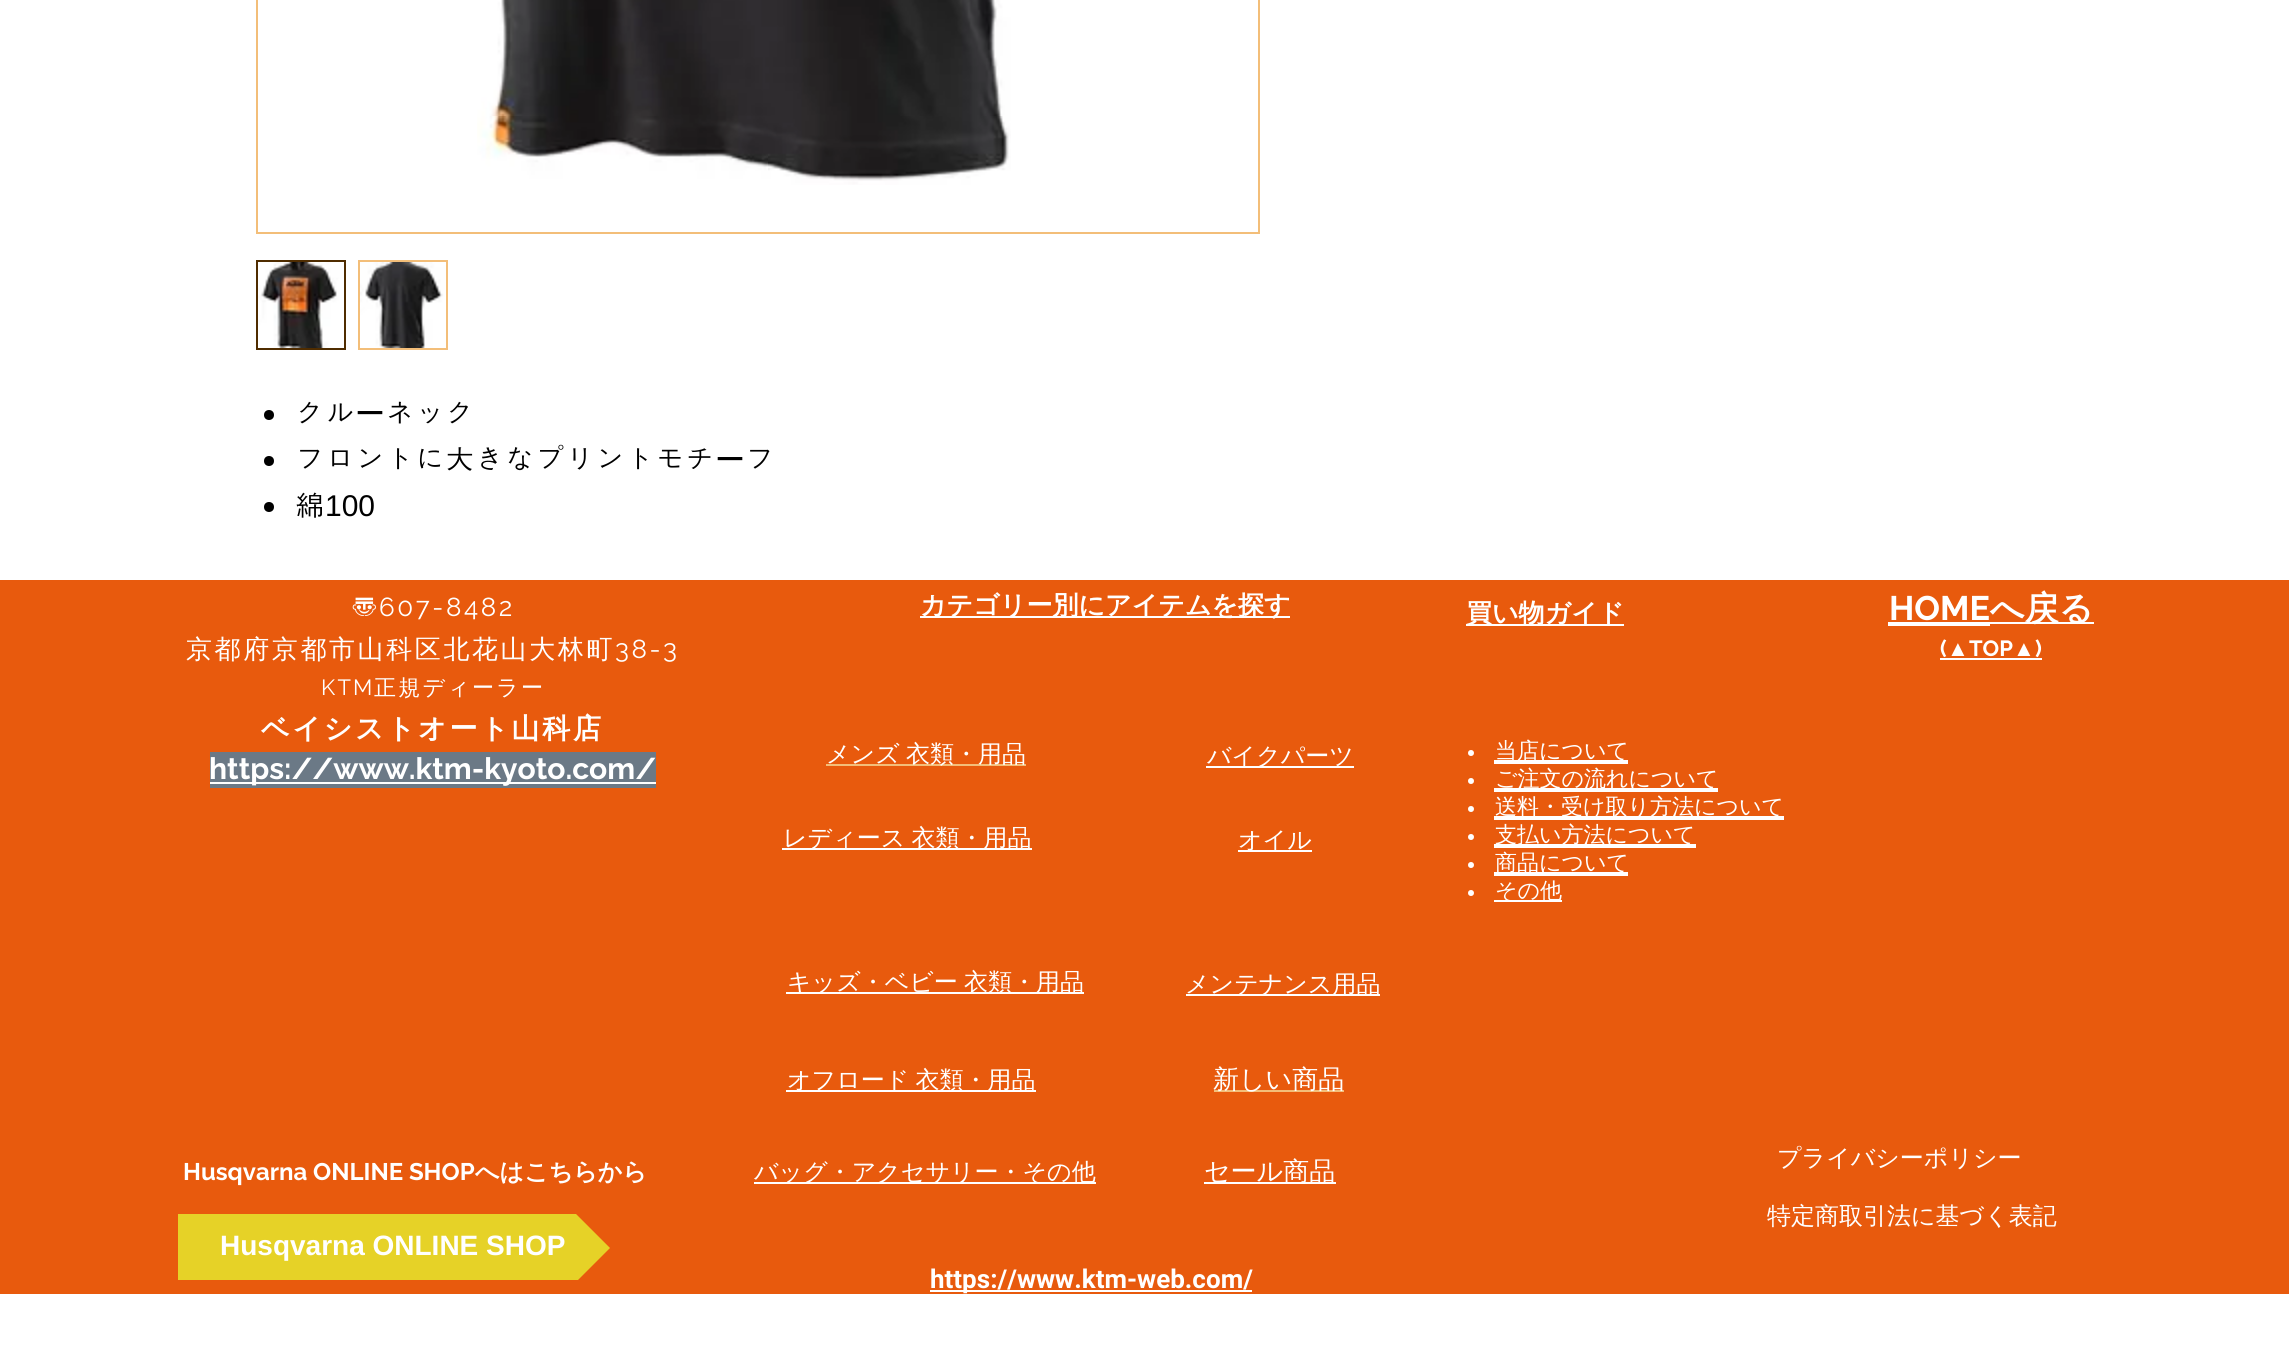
import math
import cairo

surface = cairo.ImageSurface(cairo.Format.RGB24, 2289, 1359)
ctx = cairo.Context(surface)
options = cairo.FontOptions()
options.set_hint_metrics(cairo.HintMetrics.OFF)
options.set_hint_style(cairo.HintStyle.NONE)
ctx.set_font_options(options)
ctx.set_miter_limit(4)


def ink(r, g, b):
    ctx.set_source_rgb(r / 255, g / 255, b / 255)


def write(x, y, s, family, size, color, bold=False, italic=False):
    ctx.select_font_face(family, cairo.FontSlant.ITALIC if italic else cairo.FontSlant.NORMAL, cairo.FontWeight.BOLD if bold else cairo.FontWeight.NORMAL)
    ctx.set_font_size(size)
    ink(*color)
    ctx.move_to(x, y)
    ctx.show_text(s)


def write_spaced(x, y, s, letter, word):
    ctx.move_to(x, y)
    for ch in s:
        ctx.show_text(ch)
        ctx.rel_move_to(letter + word * (ch == ' '), 0)


def block(x, y, w, h, *color):
    ink(*color)
    ctx.rectangle(x, y, w, h)
    ctx.fill()


def paste(path, x, y, w, h):
    ctx.save()
    ctx.set_source_surface(cairo.ImageSurface.create_from_png(path), x, y)
    ctx.rectangle(x, y, w, h)
    ctx.fill()
    ctx.restore()


s1 = dict(family="Dotum", size=30, color=(0, 0, 0))
s2 = dict(family="WenQuanYi Zen Hei Medium", size=30, color=(0, 0, 0))
s3 = dict(family="Liberation Sans", size=30, color=(0, 0, 0))
s4 = dict(family="Raleway", size=30, color=(255, 255, 255), bold=True)
s5 = dict(family="WenQuanYi Zen Hei", size=26, color=(255, 255, 255), bold=True)
s6 = dict(family="Raleway", size=34, color=(255, 255, 255), bold=True)
s7 = dict(family="WenQuanYi Zen Hei", size=34, color=(255, 255, 255), bold=True)
s8 = dict(family="Raleway", size=22, color=(255, 255, 255), bold=True)
s9 = dict(family="Liberation Sans", size=22, color=(255, 255, 255), bold=True)
s10 = dict(family="WenQuanYi Zen Hei Medium", size=24, color=(255, 255, 255))
s11 = dict(family="WenQuanYi Zen Hei Medium", size=22, color=(255, 255, 255))
s12 = dict(family="WenQuanYi Zen Hei Medium", size=26, color=(255, 255, 255))
s13 = dict(family="Raleway", size=24, color=(255, 255, 255), bold=True)
s14 = dict(family="WenQuanYi Zen Hei", size=24, color=(255, 255, 255), bold=True)
s15 = dict(family="Liberation Sans", size=28, color=(255, 255, 255), bold=True)
s16 = dict(family="Roboto", size=26, color=(255, 255, 255), bold=True)

ink(255, 255, 255)
ctx.paint()
ctx.rectangle(257, -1, 1002, 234)
ink(243, 190, 121)
ctx.stroke()
paste("pic1.png", 477, 0, 534, 185)
ctx.rectangle(257, 261, 88, 88)
ink(79, 44, 0)
ctx.stroke()
paste("pic2.png", 258, 262, 86, 86)
block(358, 260, 90, 90, 243, 190, 121)
paste("pic3.png", 360, 262, 86, 86)
ink(0, 0, 0)
ctx.arc(269, 415, 5, 0, 2 * math.pi)
ctx.fill()
write(295, 424, "クル", **s1)
write(355, 424, "ー", **s2)
write(385, 424, "ネック", **s1)
ctx.new_path()
ctx.arc(269, 461, 5, 0, 2 * math.pi)
ctx.fill()
write(295, 470, "フロントに大きなプリントモチ", **s1)
write(715, 470, "ー", **s2)
write(745, 470, "フ", **s1)
ctx.new_path()
ctx.arc(269, 507, 5, 0, 2 * math.pi)
ctx.fill()
write(295, 516, "綿", **s1)
write(325, 516, "100", **s3)
block(0, 580, 2289, 714, 232, 90, 13)
ctx.select_font_face("WenQuanYi Zen Hei Medium")
ctx.set_font_size(26)
ink(255, 255, 255)
write_spaced(351, 616, "〠", 2.6, 0)
ctx.select_font_face("Raleway")
write_spaced(379, 616, "607-8482", 2.6, 0)
ctx.select_font_face("WenQuanYi Zen Hei Medium")
write_spaced(186, 658, "京都府京都市山科区北花山大林町", 2.6, 0)
ctx.select_font_face("Raleway")
write_spaced(615, 658, "38-3", 2.6, 0)
ctx.set_font_size(22)
write_spaced(321, 695, "KTM", 2.25, 0)
ctx.select_font_face("WenQuanYi Zen Hei Medium")
write_spaced(374, 695, "正規ディーラー", 2.25, 0)
ctx.select_font_face("WenQuanYi Zen Hei", cairo.FontSlant.NORMAL, cairo.FontWeight.BOLD)
ctx.set_font_size(28)
write_spaced(261, 738, "ベイシストオート山科店", 2.75, 0)
block(210, 752, 446, 36, 107, 121, 134)
block(210, 782, 446, 2, 255, 255, 255)
write(209, 779, "https://www.ktm-kyoto.com/", **s4)
block(920, 616, 370, 2, 255, 255, 255)
write(920, 614, "カテゴリー別にアイテムを探す", **s5)
block(1466, 624, 158, 2, 255, 255, 255)
write(1466, 622, "買い物ガイド", **s5)
write(1889, 620, "HOME", **s6)
block(1888, 622, 102, 4, 255, 255, 255)
block(1990, 622, 104, 2, 255, 255, 255)
write(1990, 620, "へ戻る", **s7)
write(1940, 656, "(", **s8)
write(1947, 656, "▲", **s9)
block(1940, 658, 102, 2, 255, 255, 255)
write(1969, 656, "TOP", **s8)
write(2013, 656, "▲", **s9)
write(2035, 656, ")", **s8)
write(826, 762, "メンズ", **s10)
block(826, 764, 200, 2, 243, 190, 121)
write(906, 762, "衣類・用品", **s10)
block(1206, 766, 148, 2, 255, 255, 255)
write(1207, 764, "バイクパーツ", **s10)
ctx.new_path()
ctx.arc(1471, 753, 3, 0, 2 * math.pi)
ctx.fill()
block(1494, 760, 134, 4, 255, 255, 255)
write(1495, 758, "当店について", **s11)
ctx.new_path()
ctx.arc(1471, 781, 3, 0, 2 * math.pi)
ctx.fill()
block(1494, 788, 224, 4, 255, 255, 255)
write(1495, 786, "ご注文の流れについて", **s11)
ctx.new_path()
ctx.arc(1471, 809, 3, 0, 2 * math.pi)
ctx.fill()
block(1494, 816, 290, 4, 255, 255, 255)
write(1495, 814, "送料・受け取り方法について", **s11)
ctx.new_path()
ctx.arc(1471, 837, 3, 0, 2 * math.pi)
ctx.fill()
block(1494, 844, 202, 4, 255, 255, 255)
write(1495, 842, "支払い方法について", **s11)
ctx.new_path()
ctx.arc(1471, 865, 3, 0, 2 * math.pi)
ctx.fill()
block(1494, 872, 134, 4, 255, 255, 255)
write(1495, 870, "商品について", **s11)
ctx.new_path()
ctx.arc(1471, 893, 3, 0, 2 * math.pi)
ctx.fill()
block(1494, 900, 68, 2, 255, 255, 255)
write(1495, 898, "その他", **s11)
block(782, 848, 250, 2, 255, 255, 255)
ctx.set_font_size(24)
write_spaced(783, 846, "レディース 衣類・用品", 0, -1)
block(1238, 850, 74, 2, 255, 255, 255)
write(1238, 848, "オイル", **s10)
block(786, 992, 298, 2, 255, 255, 255)
write_spaced(787, 990, "キッズ・ベビー 衣類・用品", 0, -1)
block(1186, 994, 194, 2, 255, 255, 255)
write(1185, 992, "メンテナンス用品", **s10)
block(786, 1090, 250, 2, 255, 255, 255)
write_spaced(787, 1088, "オフロード 衣類・用品", 0, -1)
block(1214, 1090, 130, 2, 243, 190, 121)
write(1213, 1088, "新しい商品", **s12)
write(183, 1180, "Husqvarna ONLINE SHOP", **s13)
write(475, 1180, "へはこちらから", **s14)
block(754, 1182, 342, 2, 255, 255, 255)
write(754, 1180, "バッグ・アクセサリー・その他", **s10)
block(1204, 1182, 132, 2, 255, 255, 255)
write(1204, 1180, "セール商品", **s12)
write(1777, 1166, "プライバシーポリシー", **s10)
write(1767, 1224, "特定商取引法に基づく表記", **s10)
block(178, 1214, 332, 66, 230, 210, 39)
ctx.save()
ctx.rectangle(178, 1214, 432, 66)
ctx.clip()
ctx.new_path()
ctx.move_to(610, 1248)
ctx.line_to(510, 1248)
ctx.line_to(510, 1148)
ctx.close_path()
ctx.fill()
ctx.new_path()
ctx.move_to(510, 1248)
ctx.line_to(610, 1248)
ctx.line_to(510, 1348)
ctx.close_path()
ctx.fill()
ctx.restore()
write(220, 1255, "Husqvarna ONLINE SHOP", **s15)
block(930, 1290, 322, 2, 255, 255, 255)
write(930, 1288, "https://www.ktm-web.com/", **s16)
surface.write_to_png("screenshot.png")
